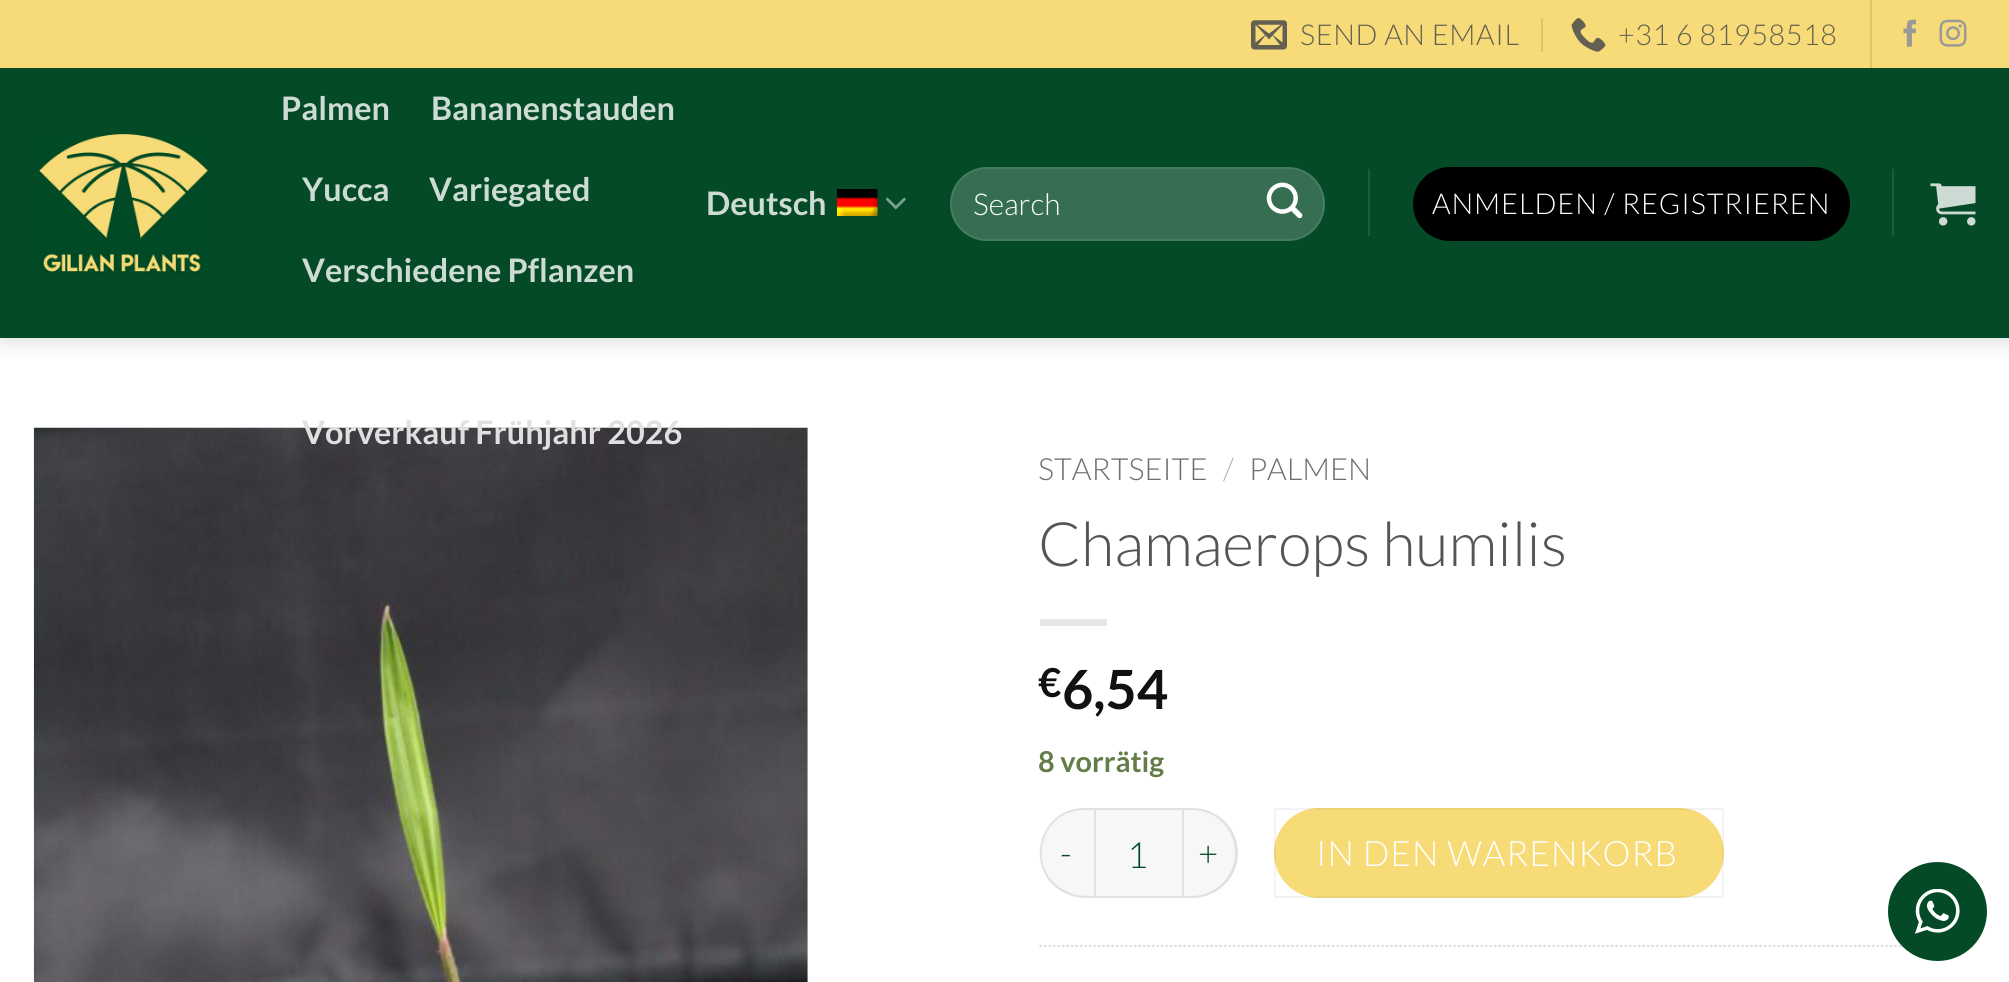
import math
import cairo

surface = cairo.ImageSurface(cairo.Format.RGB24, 2009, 982)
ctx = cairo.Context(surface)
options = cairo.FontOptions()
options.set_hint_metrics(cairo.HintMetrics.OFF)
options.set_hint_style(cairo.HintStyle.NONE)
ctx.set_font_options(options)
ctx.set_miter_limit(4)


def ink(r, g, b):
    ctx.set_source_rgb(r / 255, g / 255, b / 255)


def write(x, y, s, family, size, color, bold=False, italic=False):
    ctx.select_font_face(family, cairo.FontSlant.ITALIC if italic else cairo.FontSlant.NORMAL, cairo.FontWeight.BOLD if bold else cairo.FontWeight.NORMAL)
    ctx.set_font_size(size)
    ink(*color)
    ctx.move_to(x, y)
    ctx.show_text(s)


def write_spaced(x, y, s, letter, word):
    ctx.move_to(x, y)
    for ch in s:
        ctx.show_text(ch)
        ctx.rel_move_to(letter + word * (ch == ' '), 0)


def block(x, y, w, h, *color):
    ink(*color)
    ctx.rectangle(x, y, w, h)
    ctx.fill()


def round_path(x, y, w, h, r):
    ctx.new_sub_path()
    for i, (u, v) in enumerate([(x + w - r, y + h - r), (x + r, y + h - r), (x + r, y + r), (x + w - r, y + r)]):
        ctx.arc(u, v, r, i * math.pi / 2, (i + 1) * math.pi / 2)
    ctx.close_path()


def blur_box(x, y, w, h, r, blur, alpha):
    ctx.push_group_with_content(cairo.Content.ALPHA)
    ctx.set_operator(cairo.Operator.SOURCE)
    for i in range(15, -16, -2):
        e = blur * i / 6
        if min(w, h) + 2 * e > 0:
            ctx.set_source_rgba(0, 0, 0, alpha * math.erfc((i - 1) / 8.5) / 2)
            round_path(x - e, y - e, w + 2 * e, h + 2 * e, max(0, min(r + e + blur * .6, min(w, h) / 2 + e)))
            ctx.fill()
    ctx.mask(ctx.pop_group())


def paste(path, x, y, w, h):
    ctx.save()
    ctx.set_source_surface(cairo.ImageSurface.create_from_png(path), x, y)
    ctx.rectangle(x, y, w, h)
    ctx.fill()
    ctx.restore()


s1 = dict(family="Lato", size=32.4, color=(205, 219, 212), bold=True)
s2 = dict(family="Lato", size=32.4, color=(224, 224, 224), bold=True)
s3 = dict(family="Lato Light", size=30, color=(255, 255, 255))
s4 = dict(family="Lato Light", size=30.5, color=(110, 110, 110))
s5 = dict(family="Lato Light", size=30.5, color=(178, 178, 178))
s6 = dict(family="Lato Light", size=61.25, color=(85, 85, 85))
s7 = dict(family="Lato", size=40, color=(17, 17, 17), bold=True)
s8 = dict(family="Lato", size=54, color=(17, 17, 17), bold=True)
s9 = dict(family="Lato", size=28.75, color=(98, 125, 71), bold=True)
s10 = dict(family="Lato Light", size=36, color=(4, 74, 39))

ink(255, 255, 255)
ctx.paint()
ink(0, 0, 0)
blur_box(2, 2, 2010, 338, 0, 11, 0.15)
block(0, 0, 2009, 68, 246, 219, 120)
paste("pic1.png", 1251, 20, 36, 30)
ctx.select_font_face("Lato Light")
ctx.set_font_size(28.75)
ink(100, 96, 81)
write_spaced(1300, 45, "SEND AN EMAIL", 0.6, 0)
block(1541, 18, 2, 34, 221, 197, 108)
paste("pic2.png", 1571, 18, 35, 34)
ink(100, 96, 81)
write_spaced(1618, 45, "+31 6 81958518", 0.6, 0)
block(1870, 0, 2, 68, 221, 197, 108)
paste("pic3.png", 1903, 19, 14, 28)
paste("pic4.png", 1939, 19, 28, 28)
block(0, 68, 2009, 270, 4, 74, 39)
paste("pic5.png", 38, 133, 171, 142)
write(281, 120, "Palmen", **s1)
write(431, 120, "Bananenstauden", **s1)
write(302, 201, "Yucca", **s1)
write(429, 201, "Variegated", **s1)
write(302, 282, "Verschiedene Pflanzen", **s1)
paste("pic10.png", 33, 427, 775, 555)
write(302, 444, "Vorverkauf Frühjahr 2026", **s2)
write(706, 215, "Deutsch", **s1)
paste("pic6.png", 837, 189, 41, 27)
paste("pic7.png", 885, 197, 21, 13)
ink(54, 110, 82)
round_path(950, 167, 375, 74, 37)
ctx.fill()
round_path(951, 168, 373, 72, 36)
ctx.set_source_rgba(1, 1, 1, 0.09)
ctx.stroke()
write(973, 215, "Search", **s3)
paste("pic8.png", 1266, 182, 37, 37)
block(1368, 169, 2, 67, 29, 92, 61)
ink(0, 0, 0)
round_path(1413, 167, 437, 74, 37)
ctx.fill()
ctx.set_font_size(28.75)
ink(255, 255, 255)
write_spaced(1432, 214, "ANMELDEN / REGISTRIEREN", 0.9, 0)
block(1892, 169, 2, 67, 29, 92, 61)
paste("pic9.png", 1930, 183, 46, 43)
write(1038, 480, "STARTSEITE", **s4)
write(1223, 480, "/", **s5)
write(1249, 480, "PALMEN", **s4)
write(1038, 566, "Chamaerops humilis", **s6)
block(1040, 619, 67, 7, 230, 230, 230)
write(1038, 697, "€", **s7)
write(1062, 709, "6,54", **s8)
write(1038, 772, "8 vorrätig", **s9)
ink(247, 247, 247)
ctx.new_path()
ctx.move_to(1085, 808)
ctx.line_to(1094, 808)
ctx.line_to(1094, 898)
ctx.line_to(1085, 898)
ctx.curve_to(1060, 898, 1040, 878, 1040, 853)
ctx.curve_to(1040, 828, 1060, 808, 1085, 808)
ctx.close_path()
ctx.fill()
ctx.set_source_rgba(0, 0, 0, 0.09)
ctx.set_fill_rule(cairo.FillRule.EVEN_ODD)
ctx.new_path()
ctx.move_to(1084, 808)
ctx.line_to(1094, 808)
ctx.line_to(1094, 898)
ctx.curve_to(1084, 898, 1076, 898, 1067, 894)
ctx.curve_to(1022, 875, 1036, 808, 1084, 808)
ctx.close_path()
ctx.move_to(1084, 810)
ctx.line_to(1094, 810)
ctx.line_to(1094, 896)
ctx.curve_to(1085, 896, 1076, 896, 1068, 892)
ctx.curve_to(1025, 874, 1038, 810, 1084, 810)
ctx.close_path()
ctx.fill()
ctx.select_font_face("Lato Light")
ctx.set_font_size(35)
ink(4, 74, 39)
write_spaced(1060, 866, "-", 1, 0)
ink(247, 247, 247)
ctx.rectangle(1095, 809, 88, 88)
ctx.fill_preserve()
ink(225, 225, 225)
ctx.stroke()
write(1127, 868, "1", **s10)
ink(247, 247, 247)
ctx.new_path()
ctx.move_to(1184, 808)
ctx.line_to(1193, 808)
ctx.curve_to(1218, 808, 1238, 828, 1238, 853)
ctx.curve_to(1238, 878, 1218, 898, 1193, 898)
ctx.line_to(1184, 898)
ctx.close_path()
ctx.fill()
ctx.set_source_rgba(0, 0, 0, 0.09)
ctx.new_path()
ctx.move_to(1184, 808)
ctx.line_to(1192, 808)
ctx.curve_to(1217, 808, 1238, 828, 1238, 853)
ctx.curve_to(1238, 878, 1217, 898, 1192, 898)
ctx.line_to(1184, 898)
ctx.close_path()
ctx.move_to(1184, 810)
ctx.line_to(1192, 810)
ctx.curve_to(1216, 810, 1235, 829, 1235, 853)
ctx.curve_to(1235, 876, 1216, 896, 1192, 896)
ctx.line_to(1184, 896)
ctx.close_path()
ctx.fill()
ctx.set_font_size(35)
ink(4, 74, 39)
write_spaced(1198, 866, "+", 1, 0)
ink(247, 219, 119)
round_path(1274, 808, 450, 90, 45)
ctx.fill()
ctx.rectangle(1275, 809, 448, 88)
ctx.set_source_rgba(0, 0, 0, 0.05)
ctx.stroke()
ink(255, 255, 255)
write_spaced(1316, 866, "IN DEN WARENKORB", 1, 0)
ctx.new_path()
ctx.move_to(1039.5, 946)
ctx.line_to(1975.5, 946)
ink(221, 221, 221)
ctx.set_line_width(2.2)
ctx.set_dash([2.25, 2.25])
ctx.stroke()
ink(4, 74, 39)
ctx.arc(1937.5, 911.5, 49.5, 0, 2 * math.pi)
ctx.fill()
paste("pic11.png", 1915, 889, 45, 45)
surface.write_to_png("screenshot.png")
